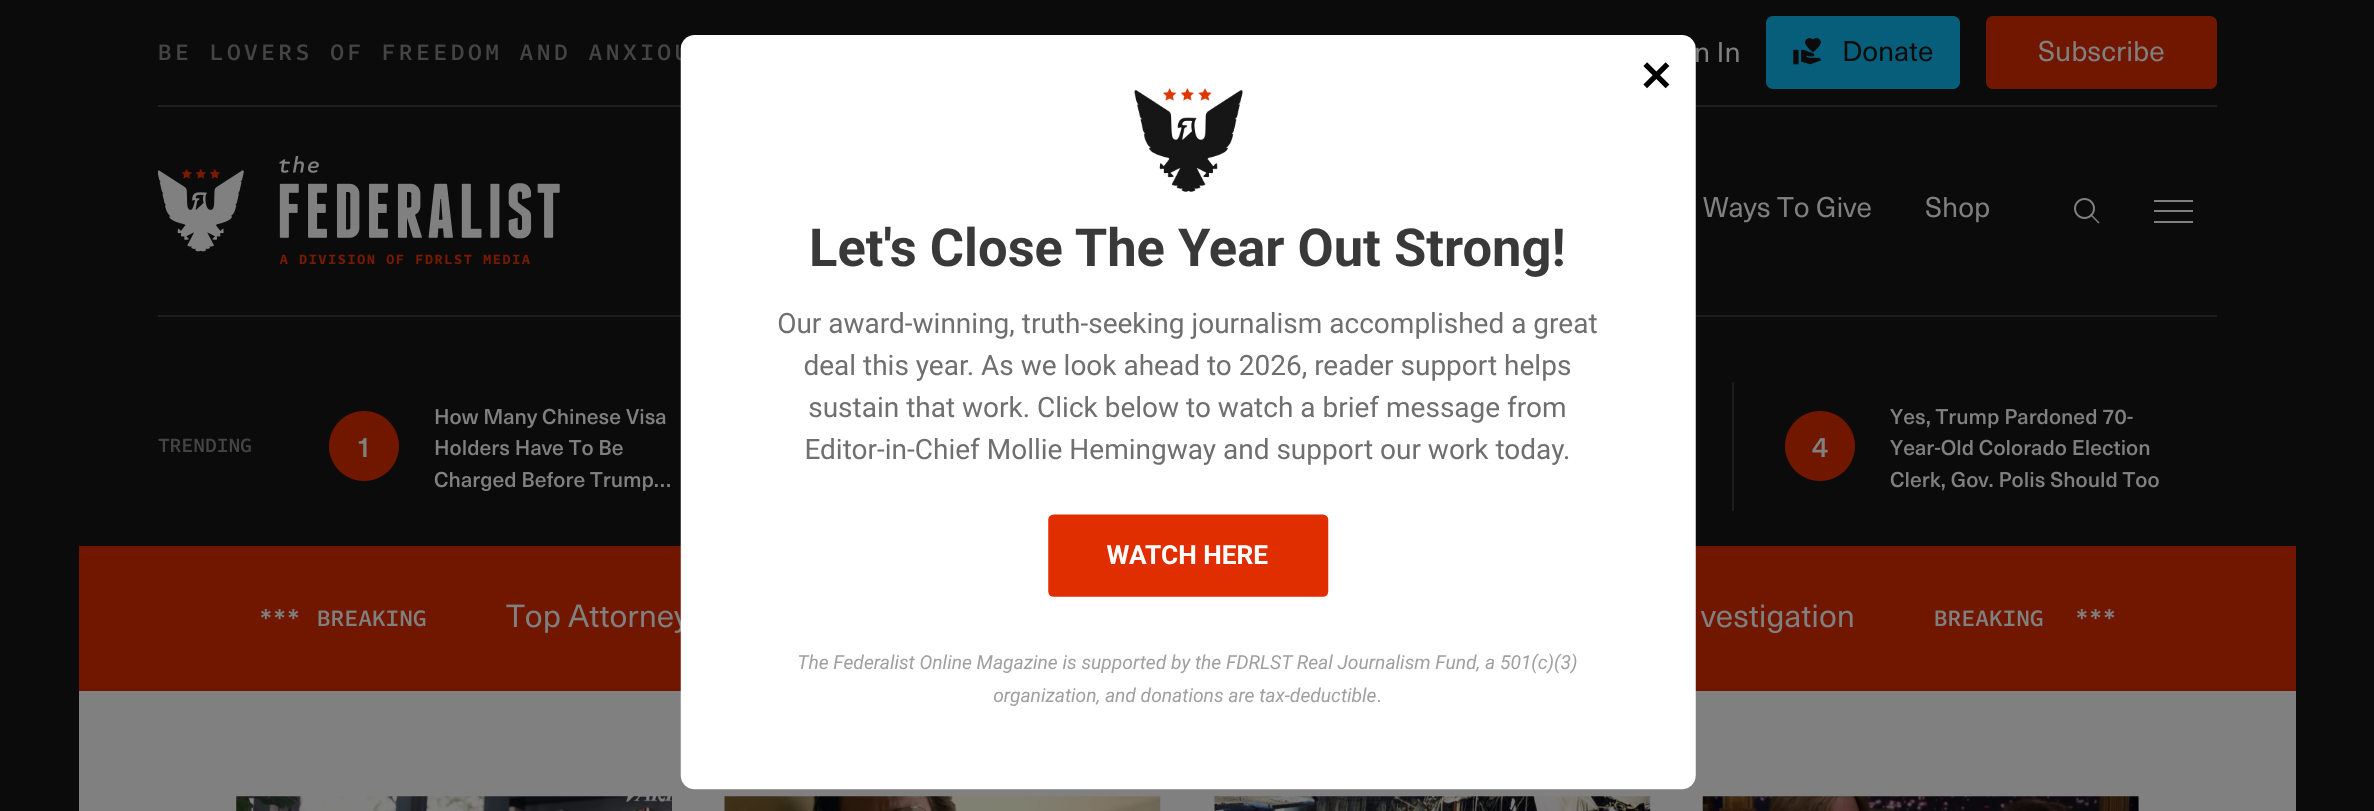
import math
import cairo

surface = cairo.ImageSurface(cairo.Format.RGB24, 2374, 811)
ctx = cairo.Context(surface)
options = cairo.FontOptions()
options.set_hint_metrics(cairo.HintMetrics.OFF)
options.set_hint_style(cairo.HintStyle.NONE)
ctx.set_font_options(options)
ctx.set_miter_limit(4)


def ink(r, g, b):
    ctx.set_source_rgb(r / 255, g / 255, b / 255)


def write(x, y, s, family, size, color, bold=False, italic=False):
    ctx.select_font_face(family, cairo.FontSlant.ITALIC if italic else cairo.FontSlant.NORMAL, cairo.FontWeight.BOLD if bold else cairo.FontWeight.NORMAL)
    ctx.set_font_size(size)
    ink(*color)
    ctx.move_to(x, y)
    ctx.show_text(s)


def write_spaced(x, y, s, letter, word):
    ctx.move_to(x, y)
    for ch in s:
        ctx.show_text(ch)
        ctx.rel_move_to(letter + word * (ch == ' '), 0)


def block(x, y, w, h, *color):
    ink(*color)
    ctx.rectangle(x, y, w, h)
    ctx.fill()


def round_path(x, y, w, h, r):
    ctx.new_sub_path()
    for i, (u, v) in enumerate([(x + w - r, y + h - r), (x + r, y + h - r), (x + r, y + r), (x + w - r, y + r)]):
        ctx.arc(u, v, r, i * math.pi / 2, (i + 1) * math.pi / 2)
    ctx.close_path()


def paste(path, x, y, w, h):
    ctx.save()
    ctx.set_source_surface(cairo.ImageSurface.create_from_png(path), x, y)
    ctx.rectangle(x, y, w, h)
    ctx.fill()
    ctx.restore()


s1 = dict(family="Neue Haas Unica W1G", size=28, color=(128, 128, 128))
s2 = dict(family="Neue Haas Unica W1G", size=31.5, color=(128, 128, 128))
s3 = dict(family="Neue Haas Unica W1G", size=28, color=(11, 11, 11))
s4 = dict(family="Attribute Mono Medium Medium", size=21, color=(68, 68, 68))
s5 = dict(family="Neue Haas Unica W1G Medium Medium", size=28, color=(128, 128, 128))
s6 = dict(family="Neue Haas Unica W1G Medium Medium", size=21, color=(128, 128, 128))
s7 = dict(family="Attribute Mono Medium Medium", size=24.5, color=(128, 128, 128))

ink(11, 11, 11)
ctx.paint()
block(158, 105, 2059, 2, 29, 29, 29)
ctx.select_font_face("Attribute Mono Medium Medium")
ctx.set_font_size(24.5)
ink(68, 68, 68)
write_spaced(158, 60, "BE LOVERS OF FREEDOM AND ANXIOU", 3.5, 0)
write(1694, 62, "n In", **s1)
block(158, 315, 2059, 2, 29, 29, 29)
block(79, 546, 2217, 145, 113, 23, 0)
write(506, 627, "Top Attorney", **s2)
block(79, 691, 2217, 120, 128, 128, 128)
paste("pic1.png", 680, 35, 1016, 755)
ink(6, 94, 122)
round_path(1766, 16, 194, 73, 7)
ctx.fill()
paste("pic2.png", 1793, 38, 28, 27)
write(1842, 61, "Donate", **s3)
ink(113, 23, 0)
round_path(1986, 16, 231, 73, 7)
ctx.fill()
write(2038, 61, "Subscribe", **s1)
paste("pic3.png", 158, 156, 402, 108)
write(1703, 217, "Ways To Give", **s1)
write(1925, 217, "Shop", **s1)
ctx.new_path()
ctx.arc(2084.5, 208.5, 9.5, 0, 2 * math.pi)
ctx.stroke()
ctx.new_path()
ctx.move_to(2091, 214)
ctx.line_to(2099.5, 222.5)
ctx.line_to(2098.5, 223.5)
ctx.line_to(2090, 215)
ctx.close_path()
ctx.fill()
block(2154, 200, 39, 2, 128, 128, 128)
block(2154, 210, 39, 2, 128, 128, 128)
block(2154, 221, 39, 2, 128, 128, 128)
write(158, 452, "TRENDING", **s4)
ink(113, 23, 0)
ctx.new_path()
ctx.arc(364, 446, 35, 0, 2 * math.pi)
ctx.fill()
write(356, 457, "1", **s5)
write(434, 424, "How Many Chinese Visa", **s6)
write(434, 455, "Holders Have To Be", **s6)
write(434, 487, "Charged Before Trump…", **s6)
block(1732, 382, 2, 129, 29, 29, 29)
ink(113, 23, 0)
ctx.new_path()
ctx.arc(1820, 446, 35, 0, 2 * math.pi)
ctx.fill()
write(1812, 457, "4", **s5)
write(1890, 424, "Yes, Trump Pardoned 70-", **s6)
write(1890, 455, "Year-Old Colorado Election", **s6)
write(1890, 487, "Clerk, Gov. Polis Should Too", **s6)
write(259, 626, "***", **s7)
write(317, 626, "BREAKING", **s7)
write(1701, 627, "vestigation", **s2)
write(1934, 626, "BREAKING", **s7)
write(2075, 626, "***", **s7)
paste("pic4.png", 236, 796, 436, 15)
paste("pic5.png", 724, 796, 437, 15)
paste("pic6.png", 1214, 796, 437, 15)
ink(109, 109, 109)
ctx.new_path()
ctx.move_to(1703, 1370)
ctx.line_to(1703, 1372)
ctx.line_to(2139, 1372)
ctx.line_to(2139, 798)
ctx.line_to(2138, 798)
ctx.line_to(2138, 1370)
ctx.close_path()
ctx.fill()
paste("pic7.png", 1702, 796, 437, 15)
surface.write_to_png("screenshot.png")
